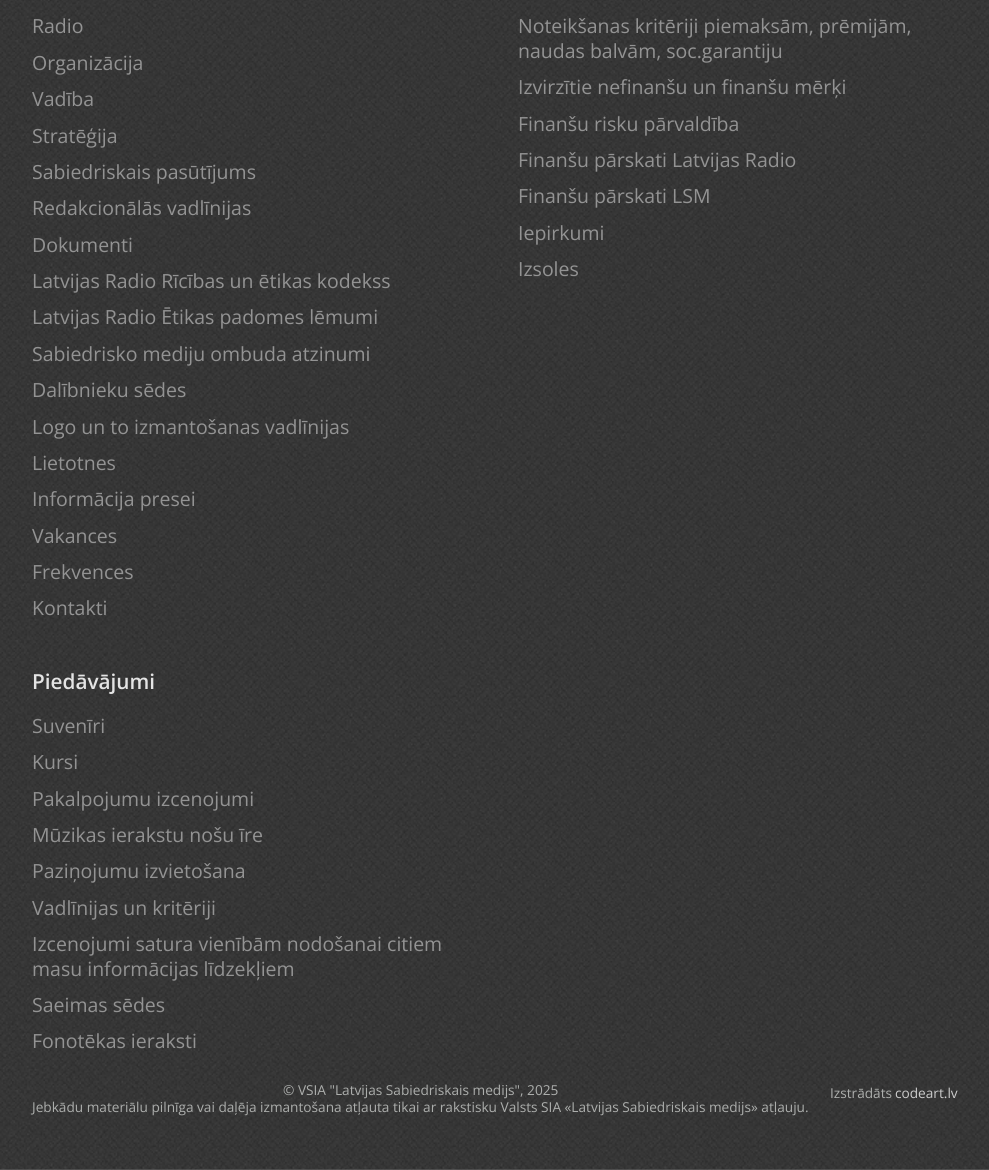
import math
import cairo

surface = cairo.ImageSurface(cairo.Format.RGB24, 989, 1170)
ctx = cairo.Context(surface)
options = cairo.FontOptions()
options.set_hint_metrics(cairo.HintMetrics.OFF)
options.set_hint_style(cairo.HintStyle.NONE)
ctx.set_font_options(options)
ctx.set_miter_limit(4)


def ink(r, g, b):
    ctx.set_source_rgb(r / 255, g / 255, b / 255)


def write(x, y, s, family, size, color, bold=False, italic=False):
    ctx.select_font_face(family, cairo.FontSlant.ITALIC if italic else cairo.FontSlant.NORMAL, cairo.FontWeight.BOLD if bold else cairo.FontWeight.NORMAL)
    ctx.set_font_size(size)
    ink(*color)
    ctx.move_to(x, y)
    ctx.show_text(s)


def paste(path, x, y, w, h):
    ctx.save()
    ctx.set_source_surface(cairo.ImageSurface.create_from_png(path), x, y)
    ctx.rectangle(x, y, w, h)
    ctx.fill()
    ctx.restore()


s1 = dict(family="Open Sans", size=19.5, color=(147, 147, 147))
s2 = dict(family="Open Sans SemiBold", size=20.75, color=(228, 228, 228))
s3 = dict(family="Open Sans", size=13.65, color=(172, 174, 172))
s4 = dict(family="Open Sans", size=13.65, color=(204, 204, 204))

ink(255, 255, 255)
ctx.paint()
paste("pic1.png", 0, 1169, 989, 1)
paste("pic2.png", 0, 1169, 989, 1)
paste("pic3.png", 0, 0, 989, 1170)
write(32, 33, "Radio", **s1)
write(32, 70, "Organizācija", **s1)
write(32, 106, "Vadība", **s1)
write(32, 143, "Stratēģija", **s1)
write(32, 179, "Sabiedriskais pasūtījums", **s1)
write(32, 215, "Redakcionālās vadlīnijas", **s1)
write(32, 252, "Dokumenti", **s1)
write(32, 288, "Latvijas Radio Rīcības un ētikas kodekss", **s1)
write(32, 324, "Latvijas Radio Ētikas padomes lēmumi", **s1)
write(32, 361, "Sabiedrisko mediju ombuda atzinumi", **s1)
write(32, 397, "Dalībnieku sēdes", **s1)
write(32, 434, "Logo un to izmantošanas vadlīnijas", **s1)
write(32, 470, "Lietotnes", **s1)
write(32, 506, "Informācija presei", **s1)
write(32, 543, "Vakances", **s1)
write(32, 579, "Frekvences", **s1)
write(32, 615, "Kontakti", **s1)
write(518, 33, "Noteikšanas kritēriji piemaksām, prēmijām,", **s1)
write(518, 58, "naudas balvām, soc.garantiju", **s1)
write(518, 94, "Izvirzītie nefinanšu un finanšu mērķi", **s1)
write(518, 131, "Finanšu risku pārvaldība", **s1)
write(518, 167, "Finanšu pārskati Latvijas Radio", **s1)
write(518, 203, "Finanšu pārskati LSM", **s1)
write(518, 240, "Iepirkumi", **s1)
write(518, 276, "Izsoles", **s1)
write(32, 689, "Piedāvājumi", **s2)
write(32, 733, "Suvenīri", **s1)
write(32, 769, "Kursi", **s1)
write(32, 806, "Pakalpojumu izcenojumi", **s1)
write(32, 842, "Mūzikas ierakstu nošu īre", **s1)
write(32, 878, "Paziņojumu izvietošana", **s1)
write(32, 915, "Vadlīnijas un kritēriji", **s1)
write(32, 951, "Izcenojumi satura vienībām nodošanai citiem", **s1)
write(32, 976, "masu informācijas līdzekļiem", **s1)
write(32, 1012, "Saeimas sēdes", **s1)
write(32, 1048, "Fonotēkas ieraksti", **s1)
write(283, 1095, "© VSIA \"Latvijas Sabiedriskais medijs\", 2025", **s3)
write(32, 1112, "Jebkādu materiālu pilnīga vai daļēja izmantošana atļauta tikai ar rakstisku Valsts SIA «Latvijas Sabiedriskais medijs» atļauju.", **s3)
write(830, 1098, "Izstrādāts", **s3)
write(895, 1098, "codeart.lv", **s4)
surface.write_to_png("screenshot.png")
